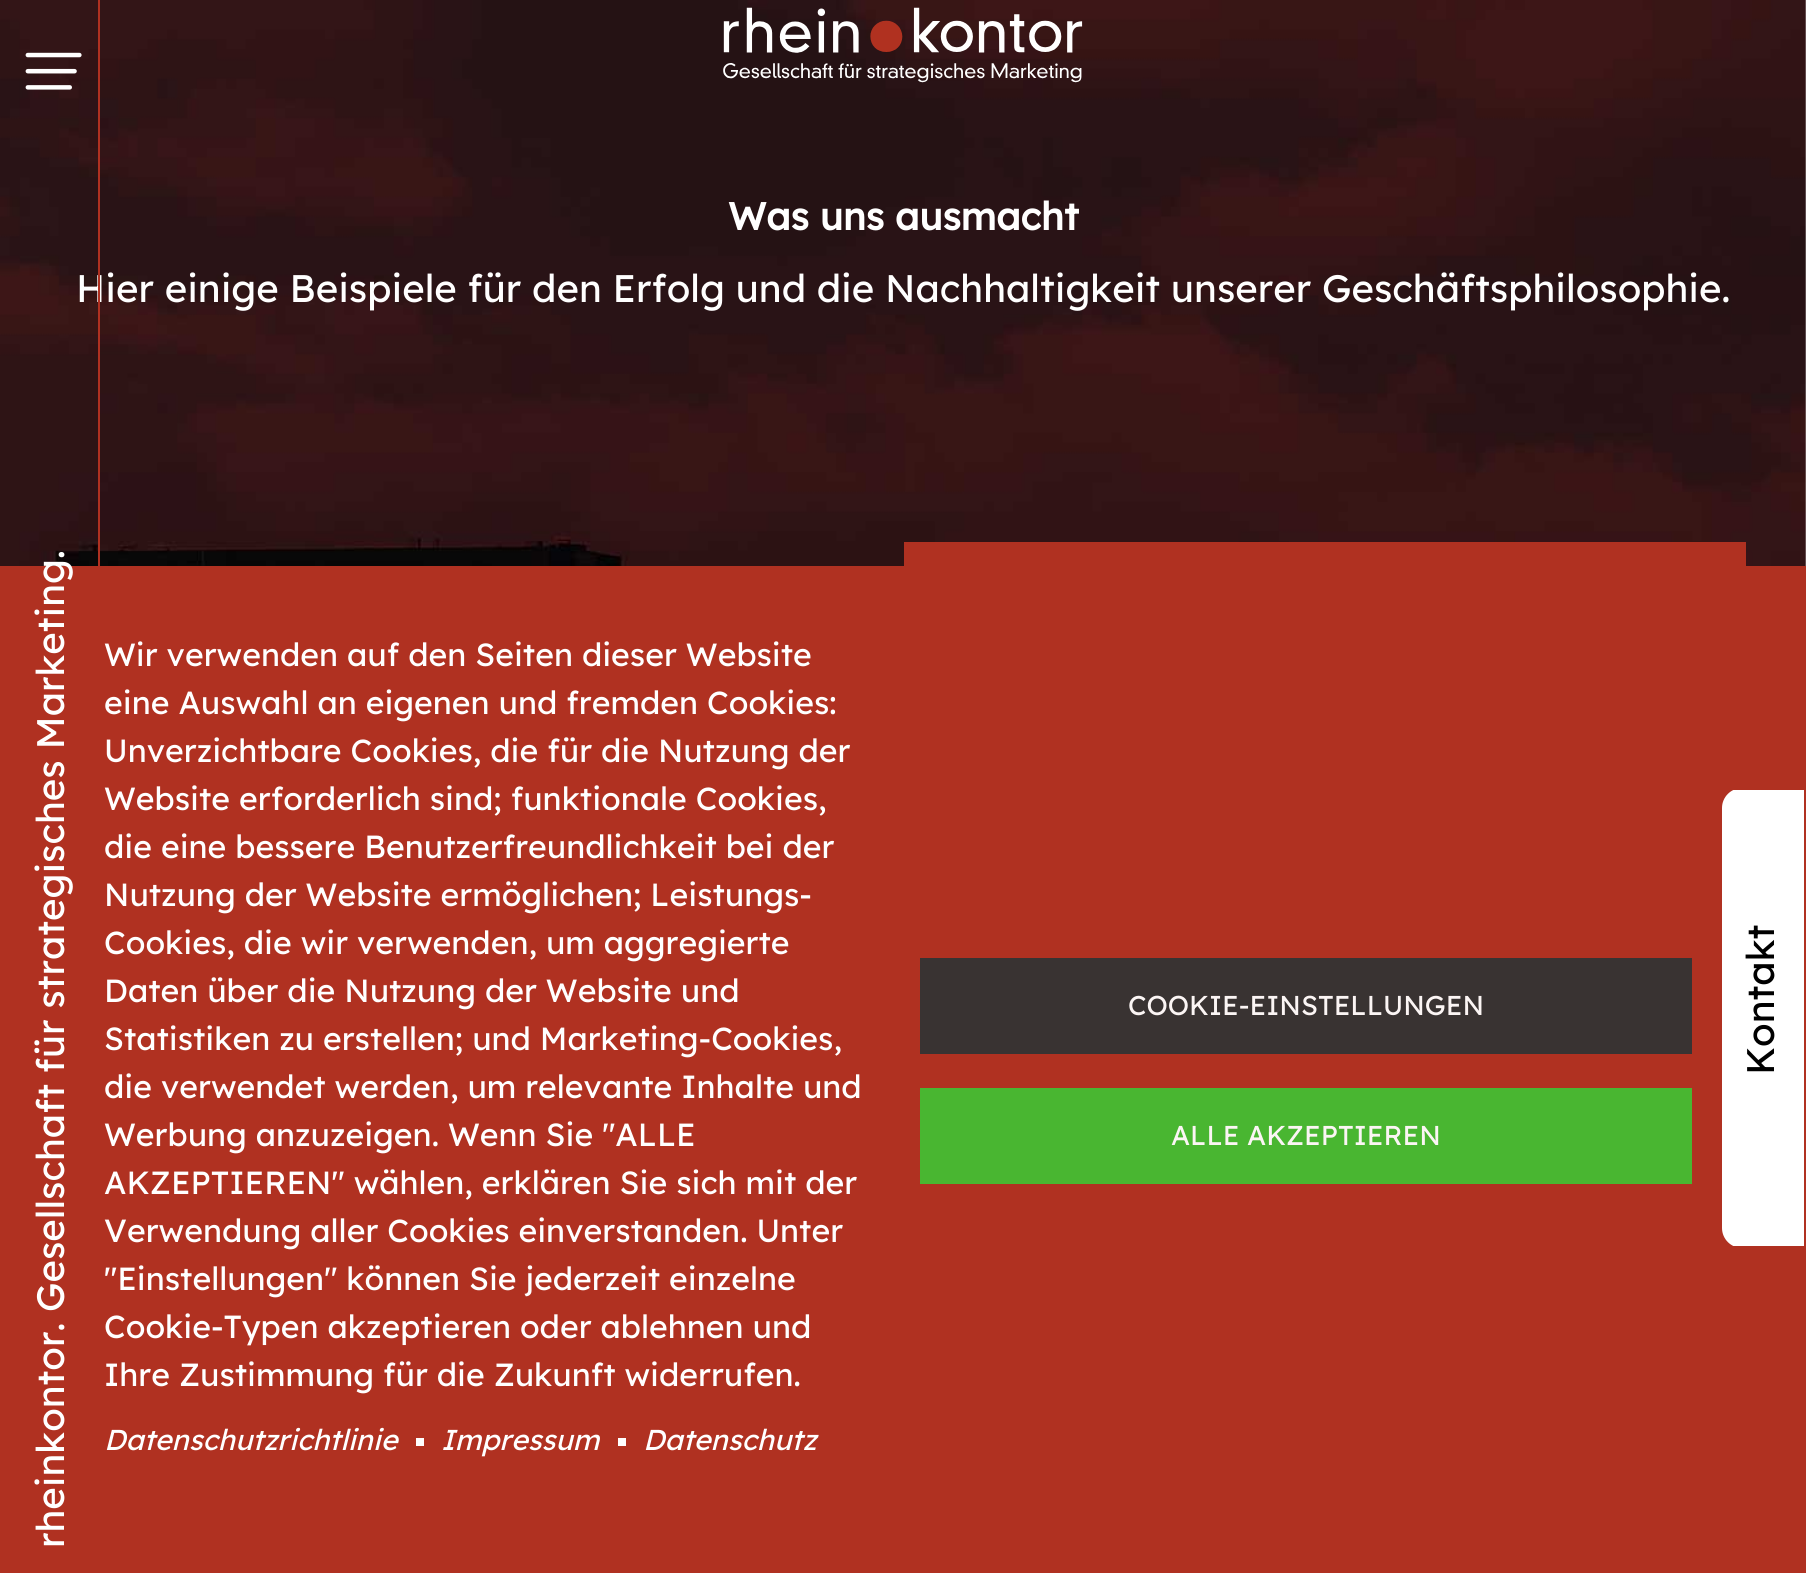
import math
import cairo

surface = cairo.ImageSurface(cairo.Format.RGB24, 1806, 1573)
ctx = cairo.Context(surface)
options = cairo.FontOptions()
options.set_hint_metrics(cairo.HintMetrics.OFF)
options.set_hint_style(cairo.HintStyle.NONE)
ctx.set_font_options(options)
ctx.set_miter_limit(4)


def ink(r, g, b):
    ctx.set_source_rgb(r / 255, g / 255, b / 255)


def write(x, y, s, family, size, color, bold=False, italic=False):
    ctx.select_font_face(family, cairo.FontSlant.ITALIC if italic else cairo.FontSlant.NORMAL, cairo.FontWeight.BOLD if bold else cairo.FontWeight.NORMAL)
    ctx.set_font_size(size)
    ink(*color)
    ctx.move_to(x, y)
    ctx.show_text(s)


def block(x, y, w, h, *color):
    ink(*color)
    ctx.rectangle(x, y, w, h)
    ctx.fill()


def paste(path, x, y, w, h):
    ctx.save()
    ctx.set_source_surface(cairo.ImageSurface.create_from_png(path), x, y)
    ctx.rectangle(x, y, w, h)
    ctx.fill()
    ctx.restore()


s1 = dict(family="Lexend", size=38.4, color=(255, 255, 255), bold=True)
s2 = dict(family="Lexend", size=38.4, color=(255, 255, 255))
s3 = dict(family="Lexend", size=32, color=(255, 255, 255))
s4 = dict(family="Lexend", size=28.75, color=(255, 255, 255), italic=True)
s5 = dict(family="Lexend", size=27.25, color=(251, 245, 244))
s6 = dict(family="Lexend", size=38.4, color=(0, 0, 0))

ink(255, 255, 255)
ctx.paint()
paste("pic1.png", 0, 0, 1806, 566)
paste("pic2.png", 25, 52, 57, 38)
paste("pic3.png", 723, 7, 360, 76)
write(728, 230, "Was uns ausmacht", **s1)
write(76, 302, "Hier einige Beispiele für den Erfolg und die Nachhaltigkeit unserer Geschäftsphilosophie.", **s2)
block(904, 542, 842, 24, 176, 49, 33)
block(98, 0, 2, 566, 176, 49, 33)
block(0, 566, 1806, 1007, 176, 49, 33)
ctx.save()
ctx.translate(64, 1548)
ctx.rotate(-90 * math.pi / 180)
write(0, 0, "rheinkontor. Gesellschaft für strategisches Marketing.", **s2)
ctx.restore()
write(104, 666, "Wir verwenden auf den Seiten dieser Website", **s3)
write(104, 714, "eine Auswahl an eigenen und fremden Cookies:", **s3)
write(104, 762, "Unverzichtbare Cookies, die für die Nutzung der", **s3)
write(104, 810, "Website erforderlich sind; funktionale Cookies,", **s3)
write(104, 858, "die eine bessere Benutzerfreundlichkeit bei der", **s3)
write(104, 906, "Nutzung der Website ermöglichen; Leistungs-", **s3)
write(104, 954, "Cookies, die wir verwenden, um aggregierte", **s3)
write(104, 1002, "Daten über die Nutzung der Website und", **s3)
write(104, 1050, "Statistiken zu erstellen; und Marketing-Cookies,", **s3)
write(104, 1098, "die verwendet werden, um relevante Inhalte und", **s3)
write(104, 1146, "Werbung anzuzeigen. Wenn Sie \"ALLE", **s3)
write(104, 1194, "AKZEPTIEREN\" wählen, erklären Sie sich mit der", **s3)
write(104, 1242, "Verwendung aller Cookies einverstanden. Unter", **s3)
write(104, 1290, "\"Einstellungen\" können Sie jederzeit einzelne", **s3)
write(104, 1338, "Cookie-Typen akzeptieren oder ablehnen und", **s3)
write(104, 1386, "Ihre Zustimmung für die Zukunft widerrufen.", **s3)
write(104, 1450, "Datenschutzrichtlinie", **s4)
block(416, 1438, 8, 8, 255, 255, 255)
write(441, 1450, "Impressum", **s4)
block(618, 1438, 8, 8, 255, 255, 255)
write(643, 1450, "Datenschutz", **s4)
block(920, 958, 772, 96, 57, 51, 50)
write(1128, 1015, "COOKIE-EINSTELLUNGEN", **s5)
block(920, 1088, 772, 96, 73, 182, 49)
write(1171, 1145, "ALLE AKZEPTIEREN", **s5)
ink(255, 255, 255)
ctx.new_path()
ctx.move_to(1742, 788)
ctx.line_to(1806, 788)
ctx.line_to(1806, 1248)
ctx.line_to(1742, 1248)
ctx.curve_to(1731, 1248, 1722, 1239, 1722, 1228)
ctx.line_to(1722, 808)
ctx.curve_to(1722, 797, 1731, 788, 1742, 788)
ctx.close_path()
ctx.fill()
block(1732, 788, 74, 2, 176, 49, 33)
block(1804, 788, 2, 460, 176, 49, 33)
block(1732, 1246, 74, 2, 176, 49, 33)
ctx.save()
ctx.translate(1774, 1075)
ctx.rotate(-90 * math.pi / 180)
write(0, 0, "Kontakt", **s6)
ctx.restore()
surface.write_to_png("screenshot.png")
